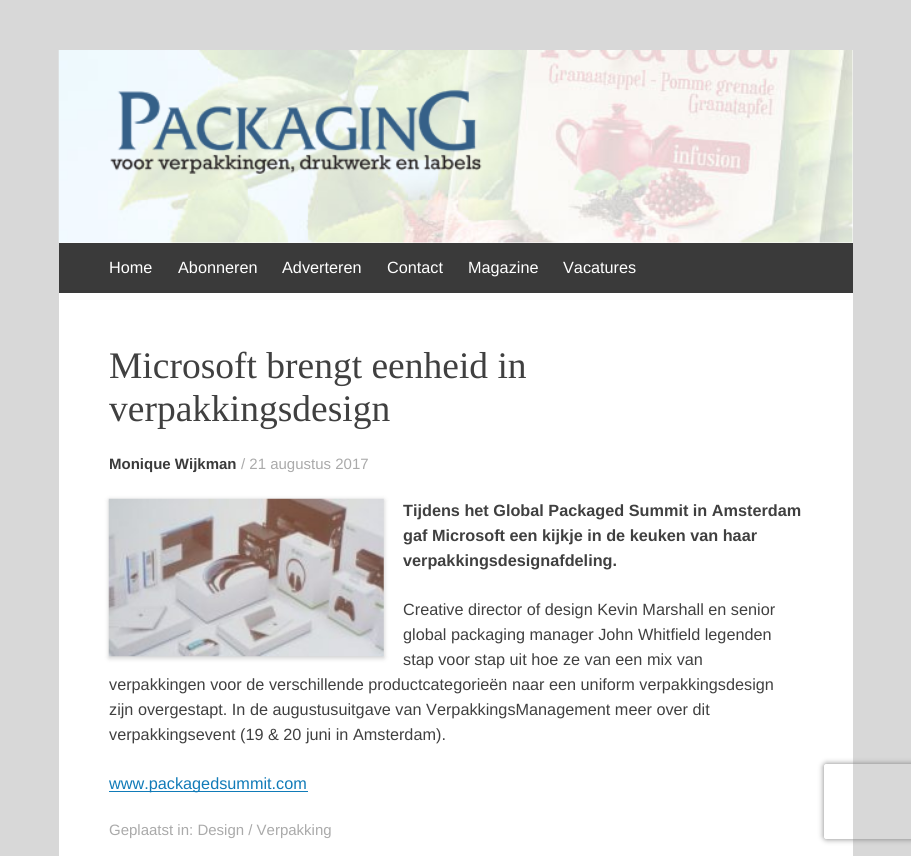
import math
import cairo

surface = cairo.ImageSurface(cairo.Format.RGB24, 911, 856)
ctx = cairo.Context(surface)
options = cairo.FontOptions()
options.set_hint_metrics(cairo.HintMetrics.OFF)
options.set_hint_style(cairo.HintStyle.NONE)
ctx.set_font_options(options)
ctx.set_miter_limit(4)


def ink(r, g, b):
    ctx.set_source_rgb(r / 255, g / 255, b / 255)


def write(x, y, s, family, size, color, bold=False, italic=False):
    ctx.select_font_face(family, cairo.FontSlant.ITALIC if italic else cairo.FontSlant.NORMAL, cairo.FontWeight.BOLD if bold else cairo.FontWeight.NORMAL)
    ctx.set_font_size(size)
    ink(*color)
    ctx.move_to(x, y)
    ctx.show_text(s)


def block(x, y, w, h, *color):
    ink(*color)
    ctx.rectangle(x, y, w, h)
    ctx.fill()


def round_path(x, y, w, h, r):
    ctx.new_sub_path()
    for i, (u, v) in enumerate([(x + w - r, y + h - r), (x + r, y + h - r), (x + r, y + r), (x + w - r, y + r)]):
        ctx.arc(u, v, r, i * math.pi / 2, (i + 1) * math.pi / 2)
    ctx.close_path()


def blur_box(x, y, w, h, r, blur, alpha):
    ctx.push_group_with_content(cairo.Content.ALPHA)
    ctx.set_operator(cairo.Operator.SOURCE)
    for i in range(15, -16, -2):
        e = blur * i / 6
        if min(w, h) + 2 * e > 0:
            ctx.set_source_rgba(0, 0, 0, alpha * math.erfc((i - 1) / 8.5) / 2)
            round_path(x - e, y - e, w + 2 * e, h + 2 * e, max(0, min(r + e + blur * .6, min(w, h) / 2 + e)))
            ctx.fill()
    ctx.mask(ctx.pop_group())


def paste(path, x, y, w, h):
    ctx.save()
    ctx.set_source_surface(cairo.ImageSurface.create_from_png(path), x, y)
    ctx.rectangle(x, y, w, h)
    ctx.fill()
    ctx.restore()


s1 = dict(family="Liberation Sans", size=16.25, color=(255, 255, 255))
s2 = dict(family="Liberation Serif", size=37.5, color=(64, 64, 64))
s3 = dict(family="Liberation Sans", size=15, color=(58, 58, 58), bold=True)
s4 = dict(family="Liberation Sans", size=15, color=(170, 170, 170))
s5 = dict(family="Liberation Sans", size=16.25, color=(64, 64, 64), bold=True)
s6 = dict(family="Liberation Sans", size=16.25, color=(64, 64, 64))
s7 = dict(family="Liberation Sans", size=16.25, color=(17, 123, 184))

ink(216, 216, 216)
ctx.paint()
block(59, 50, 794, 806, 255, 255, 255)
paste("pic1.png", 58, 50, 795, 193)
paste("pic2.png", 110, 89, 372, 85)
block(59, 243, 794, 50, 58, 58, 58)
write(109, 273, "Home", **s1)
write(178, 273, "Abonneren", **s1)
write(282, 273, "Adverteren", **s1)
write(387, 273, "Contact", **s1)
write(468, 273, "Magazine", **s1)
write(563, 273, "Vacatures", **s1)
write(109, 378, "Microsoft brengt eenheid in", **s2)
write(109, 421, "verpakkingsdesign", **s2)
write(109, 469, "Monique Wijkman", **s3)
write(241, 469, "/ 21 augustus 2017", **s4)
ink(0, 0, 0)
blur_box(109, 500, 275, 158, 0, 2.5, 0.2)
paste("pic3.png", 108, 498, 276, 159)
write(403, 516, "Tijdens het Global Packaged Summit in Amsterdam", **s5)
write(403, 541, "gaf Microsoft een kijkje in de keuken van haar", **s5)
write(403, 566, "verpakkingsdesignafdeling.", **s5)
write(403, 615, "Creative director of design Kevin Marshall en senior", **s6)
write(403, 640, "global packaging manager John Whitfield legenden", **s6)
write(403, 665, "stap voor stap uit hoe ze van een mix van", **s6)
write(109, 690, "verpakkingen voor de verschillende productcategorieën naar een uniform verpakkingsdesign", **s6)
write(109, 715, "zijn overgestapt. In de augustusuitgave van VerpakkingsManagement meer over dit", **s6)
write(109, 740, "verpakkingsevent (19 & 20 juni in Amsterdam).", **s6)
block(109, 791, 199, 1, 17, 123, 184)
write(109, 789, "www.packagedsummit.com", **s7)
write(109, 835, "Geplaatst in: Design / Verpakking", **s4)
ctx.save()
ctx.set_fill_rule(cairo.FillRule.EVEN_ODD)
ctx.new_path()
ctx.move_to(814, 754)
ctx.line_to(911, 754)
ctx.line_to(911, 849)
ctx.line_to(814, 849)
ctx.close_path()
ctx.move_to(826.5, 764)
ctx.line_to(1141.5, 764)
ctx.curve_to(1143, 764, 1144, 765, 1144, 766.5)
ctx.line_to(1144, 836.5)
ctx.curve_to(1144, 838, 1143, 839, 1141.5, 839)
ctx.line_to(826.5, 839)
ctx.curve_to(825, 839, 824, 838, 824, 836.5)
ctx.line_to(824, 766.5)
ctx.curve_to(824, 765, 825, 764, 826.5, 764)
ctx.close_path()
ctx.clip()
ink(128, 128, 128)
blur_box(824, 764, 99, 75, 2.5, 3, 1)
ctx.restore()
surface.write_to_png("screenshot.png")
